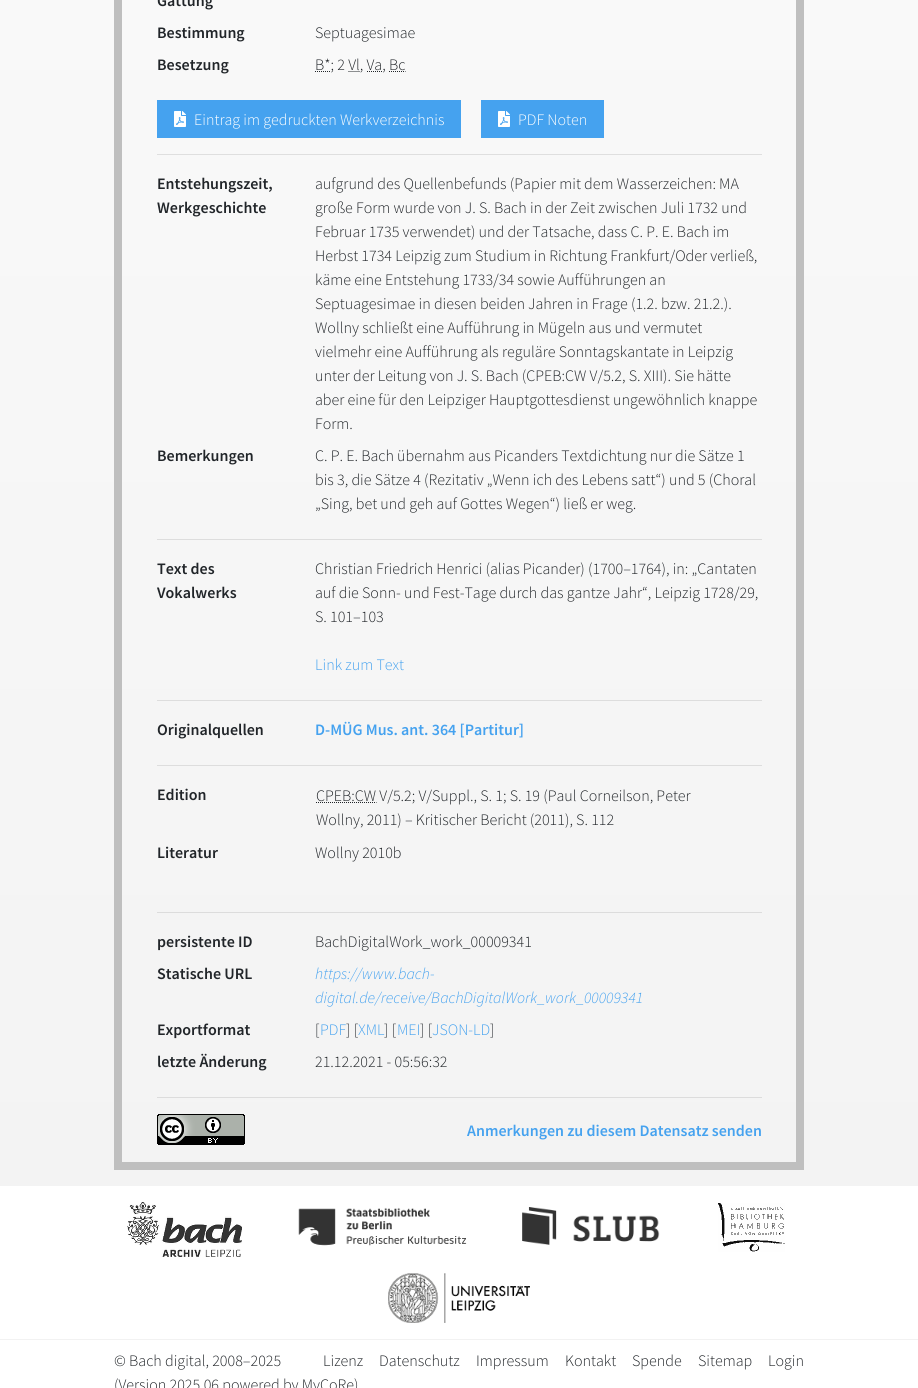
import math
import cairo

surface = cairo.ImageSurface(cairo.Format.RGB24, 918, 1388)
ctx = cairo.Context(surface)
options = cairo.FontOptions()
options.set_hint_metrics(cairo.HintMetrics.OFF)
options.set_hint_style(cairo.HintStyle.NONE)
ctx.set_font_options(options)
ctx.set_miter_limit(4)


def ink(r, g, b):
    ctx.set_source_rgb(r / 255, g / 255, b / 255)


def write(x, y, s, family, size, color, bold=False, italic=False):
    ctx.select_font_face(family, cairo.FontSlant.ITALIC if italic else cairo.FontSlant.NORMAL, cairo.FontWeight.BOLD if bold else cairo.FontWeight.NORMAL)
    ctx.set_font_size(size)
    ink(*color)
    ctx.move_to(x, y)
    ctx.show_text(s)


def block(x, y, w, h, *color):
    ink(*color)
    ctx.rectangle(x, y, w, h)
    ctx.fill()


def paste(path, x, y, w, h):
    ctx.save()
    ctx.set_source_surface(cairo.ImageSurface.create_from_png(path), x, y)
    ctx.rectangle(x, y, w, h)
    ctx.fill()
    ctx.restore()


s1 = dict(family="Source Sans Pro SemiBold", size=16, color=(33, 37, 41))
s2 = dict(family="Source Sans Pro Light", size=16, color=(33, 37, 41))
s3 = dict(family="Source Sans Pro Light", size=16, color=(255, 255, 255))
s4 = dict(family="Source Sans Pro Light", size=16, color=(69, 162, 239))
s5 = dict(family="Source Sans Pro SemiBold", size=16, color=(69, 162, 239))
s6 = dict(family="Source Sans Pro Light", size=16, color=(69, 162, 239), italic=True)

ink(255, 255, 255)
ctx.paint()
gradient = cairo.LinearGradient(459, -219, 459, 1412)
gradient.add_color_stop_rgba(0, 0.98, 0.98, 0.98, 1)
gradient.add_color_stop_rgba(1, 0.949, 0.949, 0.949, 1)
ctx.set_source(gradient)
ctx.rectangle(0, 0, 918, 1186)
ctx.fill()
ctx.rectangle(118, -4, 682, 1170)
ink(191, 191, 191)
ctx.set_line_width(8)
ctx.stroke()
write(157, 6, "Gattung", **s1)
write(157, 38, "Bestimmung", **s1)
write(315, 38, "Septuagesimae", **s2)
write(157, 70, "Besetzung", **s1)
ctx.new_path()
ctx.move_to(315, 71.5)
ctx.line_to(331, 71.5)
ctx.set_line_width(1)
ctx.set_dash([1, 1])
ctx.stroke()
write(315, 70, "B*; 2 Vl, Va, Bc", **s2)
ctx.new_path()
ctx.move_to(348.5, 71.5)
ctx.line_to(360, 71.5)
ctx.move_to(367, 71.5)
ctx.line_to(382.5, 71.5)
ctx.move_to(389, 71.5)
ctx.line_to(405.5, 71.5)
ctx.stroke()
block(157, 100, 304, 38, 69, 162, 239)
paste("pic1.png", 174, 111, 12, 16)
write(194, 125, "Eintrag im gedruckten Werkverzeichnis", **s3)
block(481, 100, 123, 38, 69, 162, 239)
paste("pic1.png", 498, 111, 12, 16)
write(518, 125, "PDF Noten", **s3)
block(157, 154, 605, 1, 223, 223, 223)
write(157, 189, "Entstehungszeit,", **s1)
write(157, 213, "Werkgeschichte", **s1)
write(315, 189, "aufgrund des Quellenbefunds (Papier mit dem Wasserzeichen: MA", **s2)
write(315, 213, "große Form wurde von J. S. Bach in der Zeit zwischen Juli 1732 und", **s2)
write(315, 237, "Februar 1735 verwendet) und der Tatsache, dass C. P. E. Bach im", **s2)
write(315, 261, "Herbst 1734 Leipzig zum Studium in Richtung Frankfurt/Oder verließ,", **s2)
write(315, 285, "käme eine Entstehung 1733/34 sowie Aufführungen an", **s2)
write(315, 309, "Septuagesimae in diesen beiden Jahren in Frage (1.2. bzw. 21.2.).", **s2)
write(315, 333, "Wollny schließt eine Aufführung in Mügeln aus und vermutet", **s2)
write(315, 357, "vielmehr eine Aufführung als reguläre Sonntagskantate in Leipzig", **s2)
write(315, 381, "unter der Leitung von J. S. Bach (CPEB:CW V/5.2, S. XIII). Sie hätte", **s2)
write(315, 405, "aber eine für den Leipziger Hauptgottesdienst ungewöhnlich knappe", **s2)
write(315, 429, "Form.", **s2)
write(157, 461, "Bemerkungen", **s1)
write(315, 461, "C. P. E. Bach übernahm aus Picanders Textdichtung nur die Sätze 1", **s2)
write(315, 485, "bis 3, die Sätze 4 (Rezitativ „Wenn ich des Lebens satt“) und 5 (Choral", **s2)
write(315, 509, "„Sing, bet und geh auf Gottes Wegen“) ließ er weg.", **s2)
block(157, 539, 605, 1, 221, 221, 221)
write(157, 574, "Text des", **s1)
write(157, 598, "Vokalwerks", **s1)
write(315, 574, "Christian Friedrich Henrici (alias Picander) (1700–1764), in: „Cantaten", **s2)
write(315, 598, "auf die Sonn- und Fest-Tage durch das gantze Jahr“, Leipzig 1728/29,", **s2)
write(315, 622, "S. 101–103", **s2)
write(315, 670, "Link zum Text", **s4)
block(157, 700, 605, 1, 221, 221, 221)
write(157, 735, "Originalquellen", **s1)
write(315, 735, "D-MÜG Mus. ant. 364 [Partitur]", **s5)
block(157, 765, 605, 1, 221, 221, 221)
write(157, 800, "Edition", **s1)
ctx.new_path()
ctx.move_to(316, 802.5)
ctx.line_to(376.5, 802.5)
ctx.stroke()
write(316, 801, "CPEB:CW V/5.2; V/Suppl., S. 1; S. 19 (Paul Corneilson, Peter", **s2)
write(316, 825, "Wollny, 2011) – Kritischer Bericht (2011), S. 112", **s2)
write(157, 858, "Literatur", **s1)
write(315, 858, "Wollny 2010b", **s2)
block(157, 912, 605, 1, 220, 220, 220)
write(157, 947, "persistente ID", **s1)
write(315, 947, "BachDigitalWork_work_00009341", **s2)
write(157, 979, "Statische URL", **s1)
write(315, 979, "https://www.bach-", **s6)
write(315, 1003, "digital.de/receive/BachDigitalWork_work_00009341", **s6)
write(157, 1035, "Exportformat", **s1)
write(315, 1035, "[", **s2)
write(320, 1035, "PDF", **s4)
write(346, 1035, "] [", **s2)
write(358, 1035, "XML", **s4)
write(384, 1035, "] [", **s2)
write(397, 1035, "MEI", **s4)
write(420, 1035, "] [", **s2)
write(432, 1035, "JSON-LD", **s4)
write(490, 1035, "]", **s2)
write(157, 1067, "letzte Änderung", **s1)
write(315, 1067, "21.12.2021 - 05:56:32", **s2)
block(157, 1097, 605, 1, 220, 220, 220)
paste("pic2.png", 157, 1114, 88, 31)
write(467, 1136, "Anmerkungen zu diesem Datensatz senden", **s5)
paste("pic3.png", 127, 1202, 115, 55)
paste("pic4.png", 298, 1207, 169, 39)
paste("pic5.png", 522, 1207, 138, 38)
paste("pic6.png", 718, 1203, 67, 49)
paste("pic7.png", 388, 1273, 142, 50)
block(0, 1339, 918, 1, 242, 242, 242)
write(114, 1366, "© Bach digital, 2008–2025", **s2)
write(114, 1390, "(Version 2025.06 powered by MyCoRe)", **s2)
write(379, 1366, "Datenschutz", **s2)
write(565, 1366, "Kontakt", **s2)
write(632, 1366, "Spende", **s2)
write(323, 1366, "Lizenz", **s2)
write(476, 1366, "Impressum", **s2)
write(698, 1366, "Sitemap", **s2)
write(768, 1366, "Login", **s2)
surface.write_to_png("screenshot.png")
